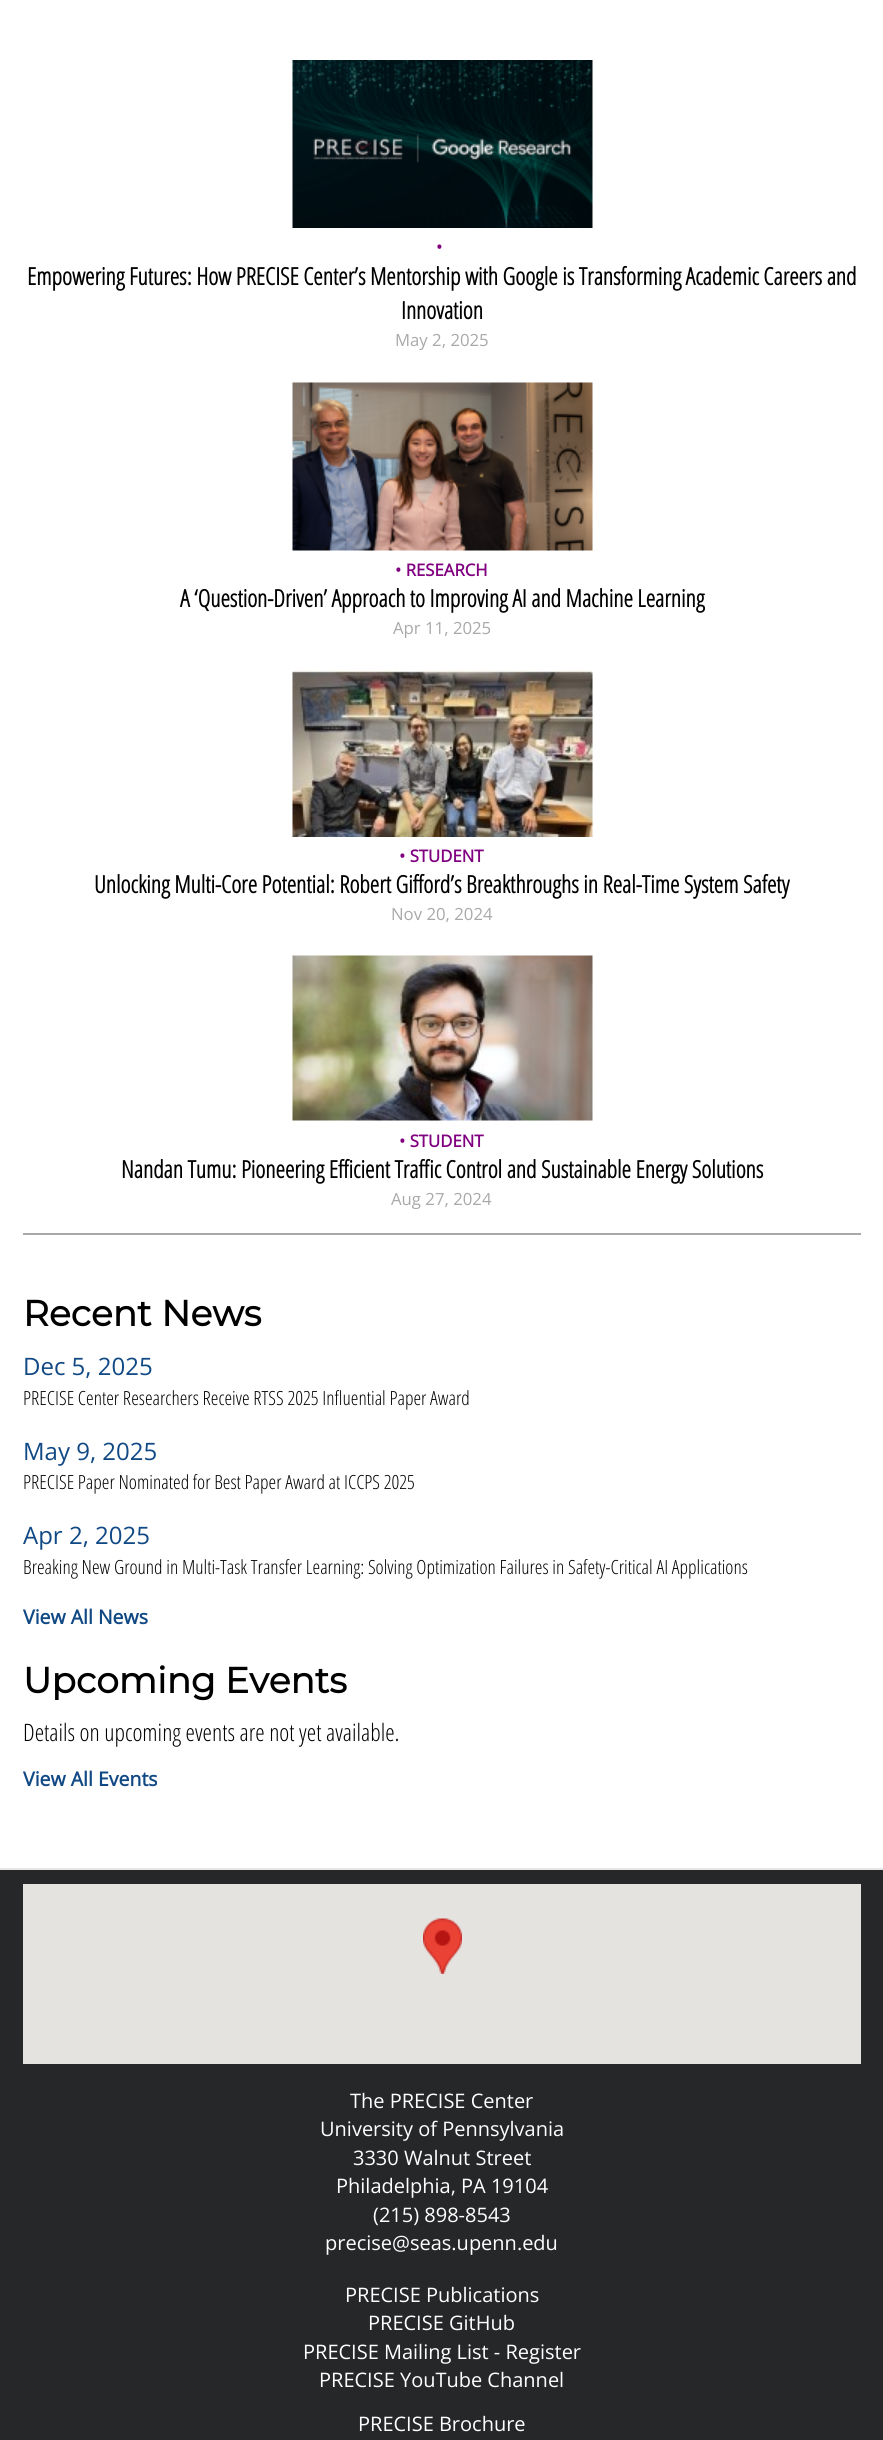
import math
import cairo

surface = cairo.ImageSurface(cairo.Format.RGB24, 883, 2440)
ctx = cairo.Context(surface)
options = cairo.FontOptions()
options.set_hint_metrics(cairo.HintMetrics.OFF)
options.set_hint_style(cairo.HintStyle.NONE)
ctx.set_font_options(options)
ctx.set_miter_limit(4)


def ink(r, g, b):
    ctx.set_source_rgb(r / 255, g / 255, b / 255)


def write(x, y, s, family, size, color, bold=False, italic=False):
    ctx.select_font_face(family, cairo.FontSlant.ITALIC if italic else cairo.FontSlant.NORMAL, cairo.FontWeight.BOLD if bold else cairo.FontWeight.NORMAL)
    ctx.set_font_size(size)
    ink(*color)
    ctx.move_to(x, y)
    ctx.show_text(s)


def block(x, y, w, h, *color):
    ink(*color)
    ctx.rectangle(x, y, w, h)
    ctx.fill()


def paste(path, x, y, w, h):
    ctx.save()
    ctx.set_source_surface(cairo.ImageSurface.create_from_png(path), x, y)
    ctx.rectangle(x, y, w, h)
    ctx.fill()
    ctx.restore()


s1 = dict(family="Open Sans", size=16.75, color=(128, 0, 128), bold=True)
s2 = dict(family="Open Sans Condensed", size=24, color=(0, 0, 0), bold=True)
s3 = dict(family="Open Sans", size=16.75, color=(169, 169, 169))
s4 = dict(family="Montserrat", size=36, color=(0, 0, 0), bold=True)
s5 = dict(family="Open Sans", size=24, color=(17, 73, 132))
s6 = dict(family="Open Sans Condensed Light", size=19.5, color=(0, 0, 0))
s7 = dict(family="Open Sans", size=19.5, color=(17, 73, 132), bold=True)
s8 = dict(family="Open Sans Condensed Light", size=24, color=(0, 0, 0))
s9 = dict(family="Open Sans", size=20, color=(255, 255, 255))

ink(255, 255, 255)
ctx.paint()
block(23, 1233, 838, 2, 169, 169, 169)
paste("pic1.png", 292, 60, 301, 168)
write(436, 253, "•", **s1)
write(27, 285, "Empowering Futures: How PRECISE Center’s Mentorship with Google is Transforming Academic Careers and", **s2)
write(401, 319, "Innovation", **s2)
write(395, 346, "May 2, 2025", **s3)
paste("pic2.png", 292, 382, 301, 169)
write(395, 576, "• RESEARCH", **s1)
write(180, 607, "A ‘Question-Driven’ Approach to Improving AI and Machine Learning", **s2)
write(393, 634, "Apr 11, 2025", **s3)
paste("pic3.png", 292, 670, 301, 167)
write(399, 862, "• STUDENT", **s1)
write(94, 893, "Unlocking Multi-Core Potential: Robert Gifford’s Breakthroughs in Real-Time System Safety", **s2)
write(391, 920, "Nov 20, 2024", **s3)
paste("pic4.png", 292, 955, 301, 166)
write(399, 1147, "• STUDENT", **s1)
write(121, 1178, "Nandan Tumu: Pioneering Efficient Traffic Control and Sustainable Energy Solutions", **s2)
write(391, 1205, "Aug 27, 2024", **s3)
write(23, 1326, "Recent News", **s4)
write(23, 1375, "Dec 5, 2025", **s5)
write(23, 1405, "PRECISE Center Researchers Receive RTSS 2025 Influential Paper Award", **s6)
write(23, 1460, "May 9, 2025", **s5)
write(23, 1489, "PRECISE Paper Nominated for Best Paper Award at ICCPS 2025", **s6)
write(23, 1544, "Apr 2, 2025", **s5)
write(23, 1574, "Breaking New Ground in Multi-Task Transfer Learning: Solving Optimization Failures in Safety-Critical AI Applications", **s6)
write(23, 1624, "View All News", **s7)
write(23, 1693, "Upcoming Events", **s4)
write(23, 1741, "Details on upcoming events are not yet available.", **s8)
write(23, 1786, "View All Events", **s7)
block(0, 1870, 883, 570, 37, 39, 40)
block(0, 1868, 883, 2, 229, 229, 229)
block(23, 1884, 838, 180, 229, 227, 223)
paste("pic5.png", 423, 1918, 39, 56)
write(350, 2108, "The PRECISE Center", **s9)
write(320, 2136, "University of Pennsylvania", **s9)
write(353, 2165, "3330 Walnut Street", **s9)
write(336, 2193, "Philadelphia, PA 19104", **s9)
write(373, 2222, "(215) 898-8543", **s9)
write(325, 2250, "precise@seas.upenn.edu", **s9)
write(345, 2302, "PRECISE Publications", **s9)
write(368, 2330, "PRECISE GitHub", **s9)
write(303, 2359, "PRECISE Mailing List - Register", **s9)
write(319, 2387, "PRECISE YouTube Channel", **s9)
write(358, 2431, "PRECISE Brochure", **s9)
surface.write_to_png("screenshot.png")
